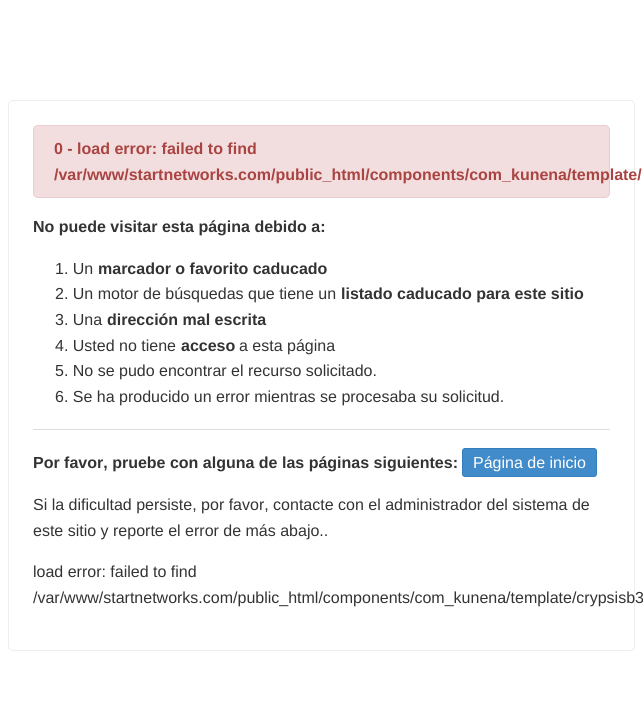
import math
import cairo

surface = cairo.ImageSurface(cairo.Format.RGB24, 643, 704)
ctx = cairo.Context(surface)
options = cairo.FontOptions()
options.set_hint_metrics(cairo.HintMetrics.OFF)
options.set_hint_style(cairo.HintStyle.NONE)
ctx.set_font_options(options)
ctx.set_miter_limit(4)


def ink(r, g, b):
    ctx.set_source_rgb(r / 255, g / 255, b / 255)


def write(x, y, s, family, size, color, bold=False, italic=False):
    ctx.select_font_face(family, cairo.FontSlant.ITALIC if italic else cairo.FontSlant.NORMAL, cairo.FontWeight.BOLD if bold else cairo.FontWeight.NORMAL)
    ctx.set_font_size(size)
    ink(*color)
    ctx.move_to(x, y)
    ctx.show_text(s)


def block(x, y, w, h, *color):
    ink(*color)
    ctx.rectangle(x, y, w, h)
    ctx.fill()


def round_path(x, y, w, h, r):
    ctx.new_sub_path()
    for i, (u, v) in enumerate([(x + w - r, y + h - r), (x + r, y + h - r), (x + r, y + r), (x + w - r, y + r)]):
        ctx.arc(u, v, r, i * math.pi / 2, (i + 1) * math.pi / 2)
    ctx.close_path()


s1 = dict(family="Liberation Sans", size=16, color=(169, 68, 66), bold=True)
s2 = dict(family="Liberation Sans", size=16, color=(51, 51, 51), bold=True)
s3 = dict(family="Liberation Sans", size=16, color=(51, 51, 51))
s4 = dict(family="Liberation Sans", size=16, color=(255, 255, 255))

ink(255, 255, 255)
ctx.paint()
round_path(8.5, 100.5, 626, 550, 4.5)
ink(238, 238, 238)
ctx.set_line_width(1)
ctx.stroke()
ink(242, 222, 222)
round_path(33.5, 125.5, 576, 72, 4.5)
ctx.fill_preserve()
ink(235, 204, 209)
ctx.stroke()
write(54, 154, "0 - load error: failed to find", **s1)
write(54, 180, "/var/www/startnetworks.com/public_html/components/com_kunena/template/", **s1)
write(33, 232, "No puede visitar esta página debido a:", **s2)
block(33, 429, 577, 1, 221, 221, 221)
write(55, 274, "1. Un", **s3)
write(98, 274, "marcador o favorito caducado", **s2)
write(55, 299, "2. Un motor de búsquedas que tiene un", **s3)
write(341, 299, "listado caducado para este sitio", **s2)
write(55, 325, "3. Una", **s3)
write(107, 325, "dirección mal escrita", **s2)
write(55, 351, "4. Usted no tiene", **s3)
write(181, 351, "acceso", **s2)
write(239, 351, "a esta página", **s3)
write(55, 376, "5. No se pudo encontrar el recurso solicitado.", **s3)
write(55, 402, "6. Se ha producido un error mientras se procesaba su solicitud.", **s3)
write(33, 468, "Por favor, pruebe con alguna de las páginas siguientes:", **s2)
ink(66, 139, 202)
round_path(462.5, 448.5, 134, 28, 2.5)
ctx.fill_preserve()
ink(53, 126, 189)
ctx.stroke()
write(473, 468, "Página de inicio", **s4)
write(33, 510, "Si la dificultad persiste, por favor, contacte con el administrador del sistema de", **s3)
write(33, 536, "este sitio y reporte el error de más abajo..", **s3)
write(33, 577, "load error: failed to find", **s3)
write(33, 603, "/var/www/startnetworks.com/public_html/components/com_kunena/template/crypsisb3", **s3)
surface.write_to_png("screenshot.png")
